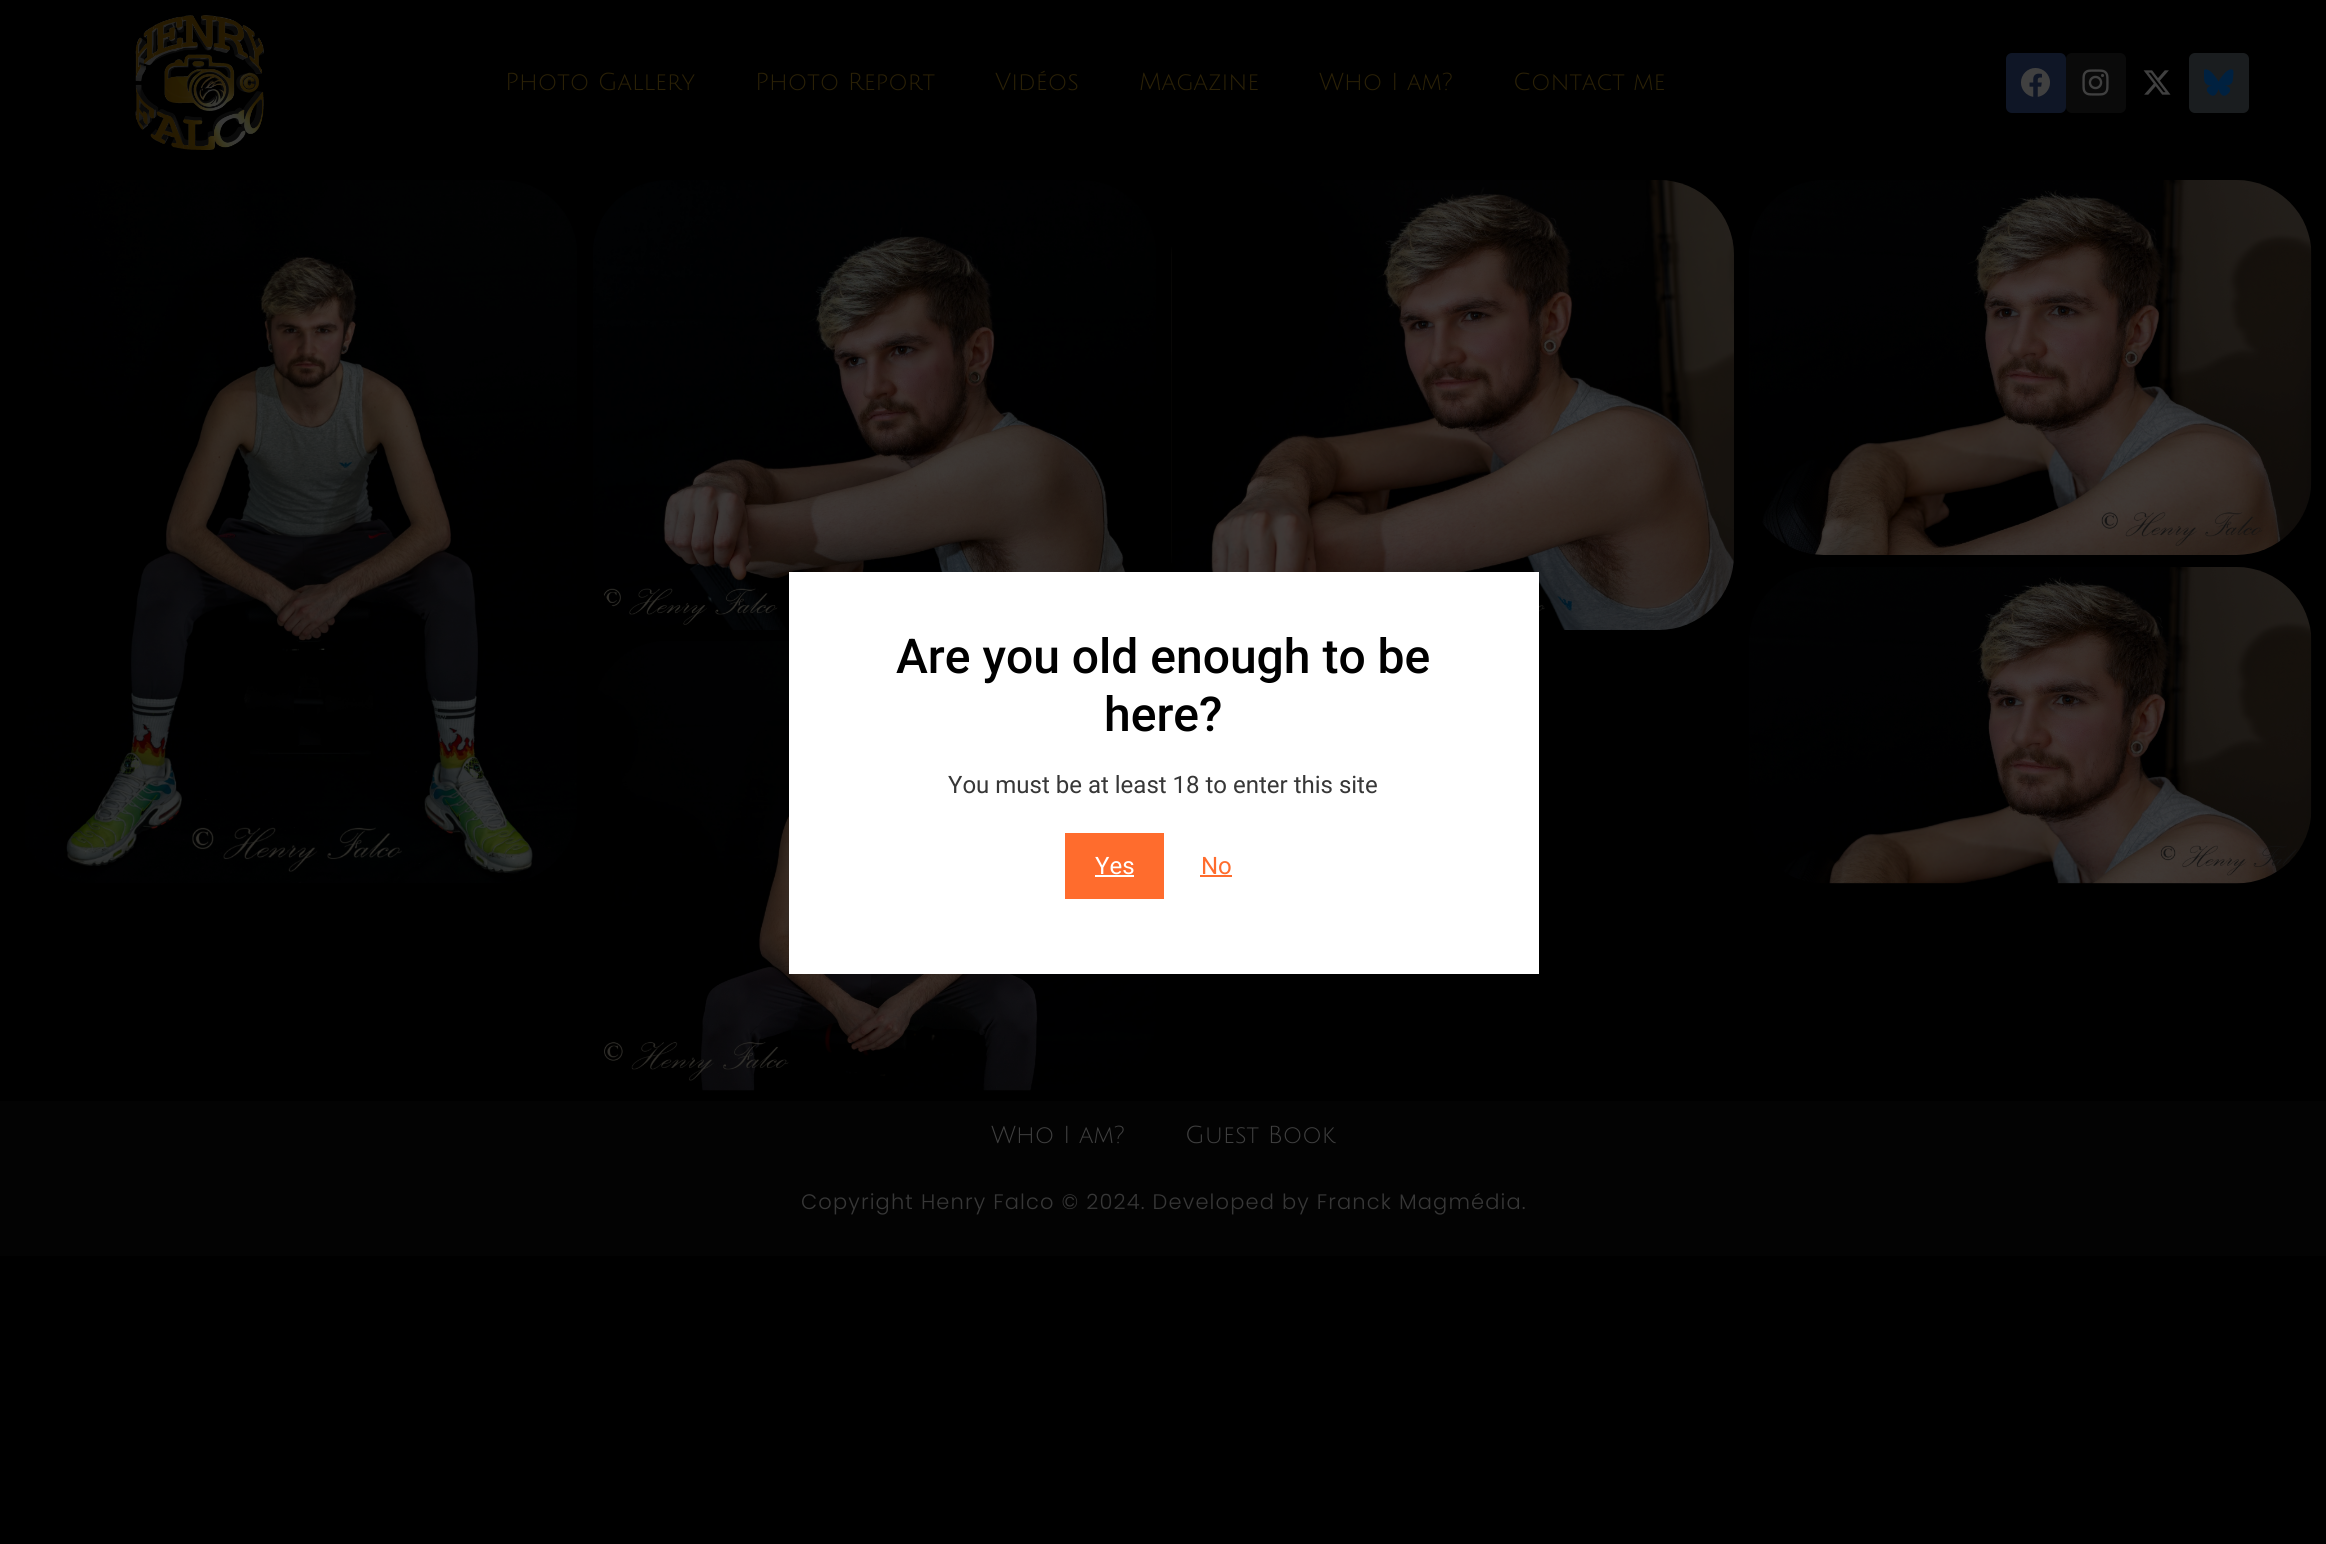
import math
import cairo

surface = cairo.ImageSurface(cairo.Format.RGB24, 2326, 1544)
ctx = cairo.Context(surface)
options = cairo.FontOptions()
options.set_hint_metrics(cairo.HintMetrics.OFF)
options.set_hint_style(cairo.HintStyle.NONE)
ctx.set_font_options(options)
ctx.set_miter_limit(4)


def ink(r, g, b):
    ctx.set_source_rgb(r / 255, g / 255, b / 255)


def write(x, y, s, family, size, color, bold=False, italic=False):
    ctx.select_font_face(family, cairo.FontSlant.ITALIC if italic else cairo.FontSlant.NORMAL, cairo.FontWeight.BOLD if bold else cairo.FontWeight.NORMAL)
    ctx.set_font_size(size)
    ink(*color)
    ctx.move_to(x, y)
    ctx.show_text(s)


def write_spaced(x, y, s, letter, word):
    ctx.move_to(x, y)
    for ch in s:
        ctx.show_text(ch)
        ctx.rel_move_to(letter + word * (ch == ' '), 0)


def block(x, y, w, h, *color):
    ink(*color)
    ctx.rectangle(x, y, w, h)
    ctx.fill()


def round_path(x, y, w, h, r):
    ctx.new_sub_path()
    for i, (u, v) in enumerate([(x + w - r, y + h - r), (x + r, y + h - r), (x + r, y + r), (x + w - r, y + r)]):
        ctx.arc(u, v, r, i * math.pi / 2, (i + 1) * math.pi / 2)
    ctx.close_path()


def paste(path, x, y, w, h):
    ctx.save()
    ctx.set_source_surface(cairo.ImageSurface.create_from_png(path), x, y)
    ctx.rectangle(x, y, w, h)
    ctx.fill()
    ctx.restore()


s1 = dict(family="Julius Sans One", size=24, color=(43, 33, 6))
s2 = dict(family="Roboto Medium", size=48, color=(0, 0, 0))
s3 = dict(family="Roboto", size=24, color=(55, 55, 55))
s4 = dict(family="Roboto", size=24, color=(255, 255, 255))
s5 = dict(family="Roboto", size=24, color=(255, 108, 45))
s6 = dict(family="Julius Sans One", size=24, color=(64, 64, 64))

ink(0, 0, 0)
ctx.paint()
paste("pic1.png", 135, 15, 129, 135)
write(505, 90, "Photo Gallery", **s1)
write(755, 90, "Photo Report", **s1)
write(995, 90, "Vidéos", **s1)
write(1139, 90, "Magazine", **s1)
write(1319, 90, "Who I am?", **s1)
write(1513, 90, "Contact me", **s1)
ink(15, 22, 38)
round_path(2006, 53, 60, 60, 6)
ctx.fill()
paste("pic2.png", 2021, 68, 29, 29)
ink(10, 10, 10)
round_path(2066, 53, 60, 60, 6)
ctx.fill()
paste("pic3.png", 2082, 69, 27, 27)
paste("pic4.png", 2143, 70, 28, 25)
ink(26, 29, 31)
round_path(2189, 53, 60, 60, 6)
ctx.fill()
paste("pic5.png", 2204, 69, 30, 27)
paste("pic6.png", 25, 180, 552, 703)
paste("pic7.png", 593, 180, 563, 450)
paste("pic8.png", 1171, 180, 563, 450)
paste("pic9.png", 1749, 180, 563, 375)
paste("pic10.png", 598, 640, 558, 451)
paste("pic11.png", 1749, 567, 563, 317)
block(789, 572, 750, 402, 255, 255, 255)
write(896, 673, "Are you old enough to be", **s2)
write(1104, 731, "here?", **s2)
write(948, 793, "You must be at least 18 to enter this site", **s3)
block(1065, 833, 99, 66, 255, 108, 45)
write(1095, 874, "Yes", **s4)
block(1095, 875, 39, 2, 255, 255, 255)
write(1201, 874, "No", **s5)
block(1200, 875, 32, 2, 255, 108, 45)
block(0, 1101, 2326, 155, 3, 3, 3)
write(991, 1143, "Who I am?", **s6)
write(1185, 1143, "Guest Book", **s6)
ctx.select_font_face("Poppins Light")
ctx.set_font_size(21)
ink(55, 55, 55)
write_spaced(801, 1209, "Copyright Henry Falco © 2024. Developed by Franck Magmédia.", 1.15, 0)
surface.write_to_png("screenshot.png")
